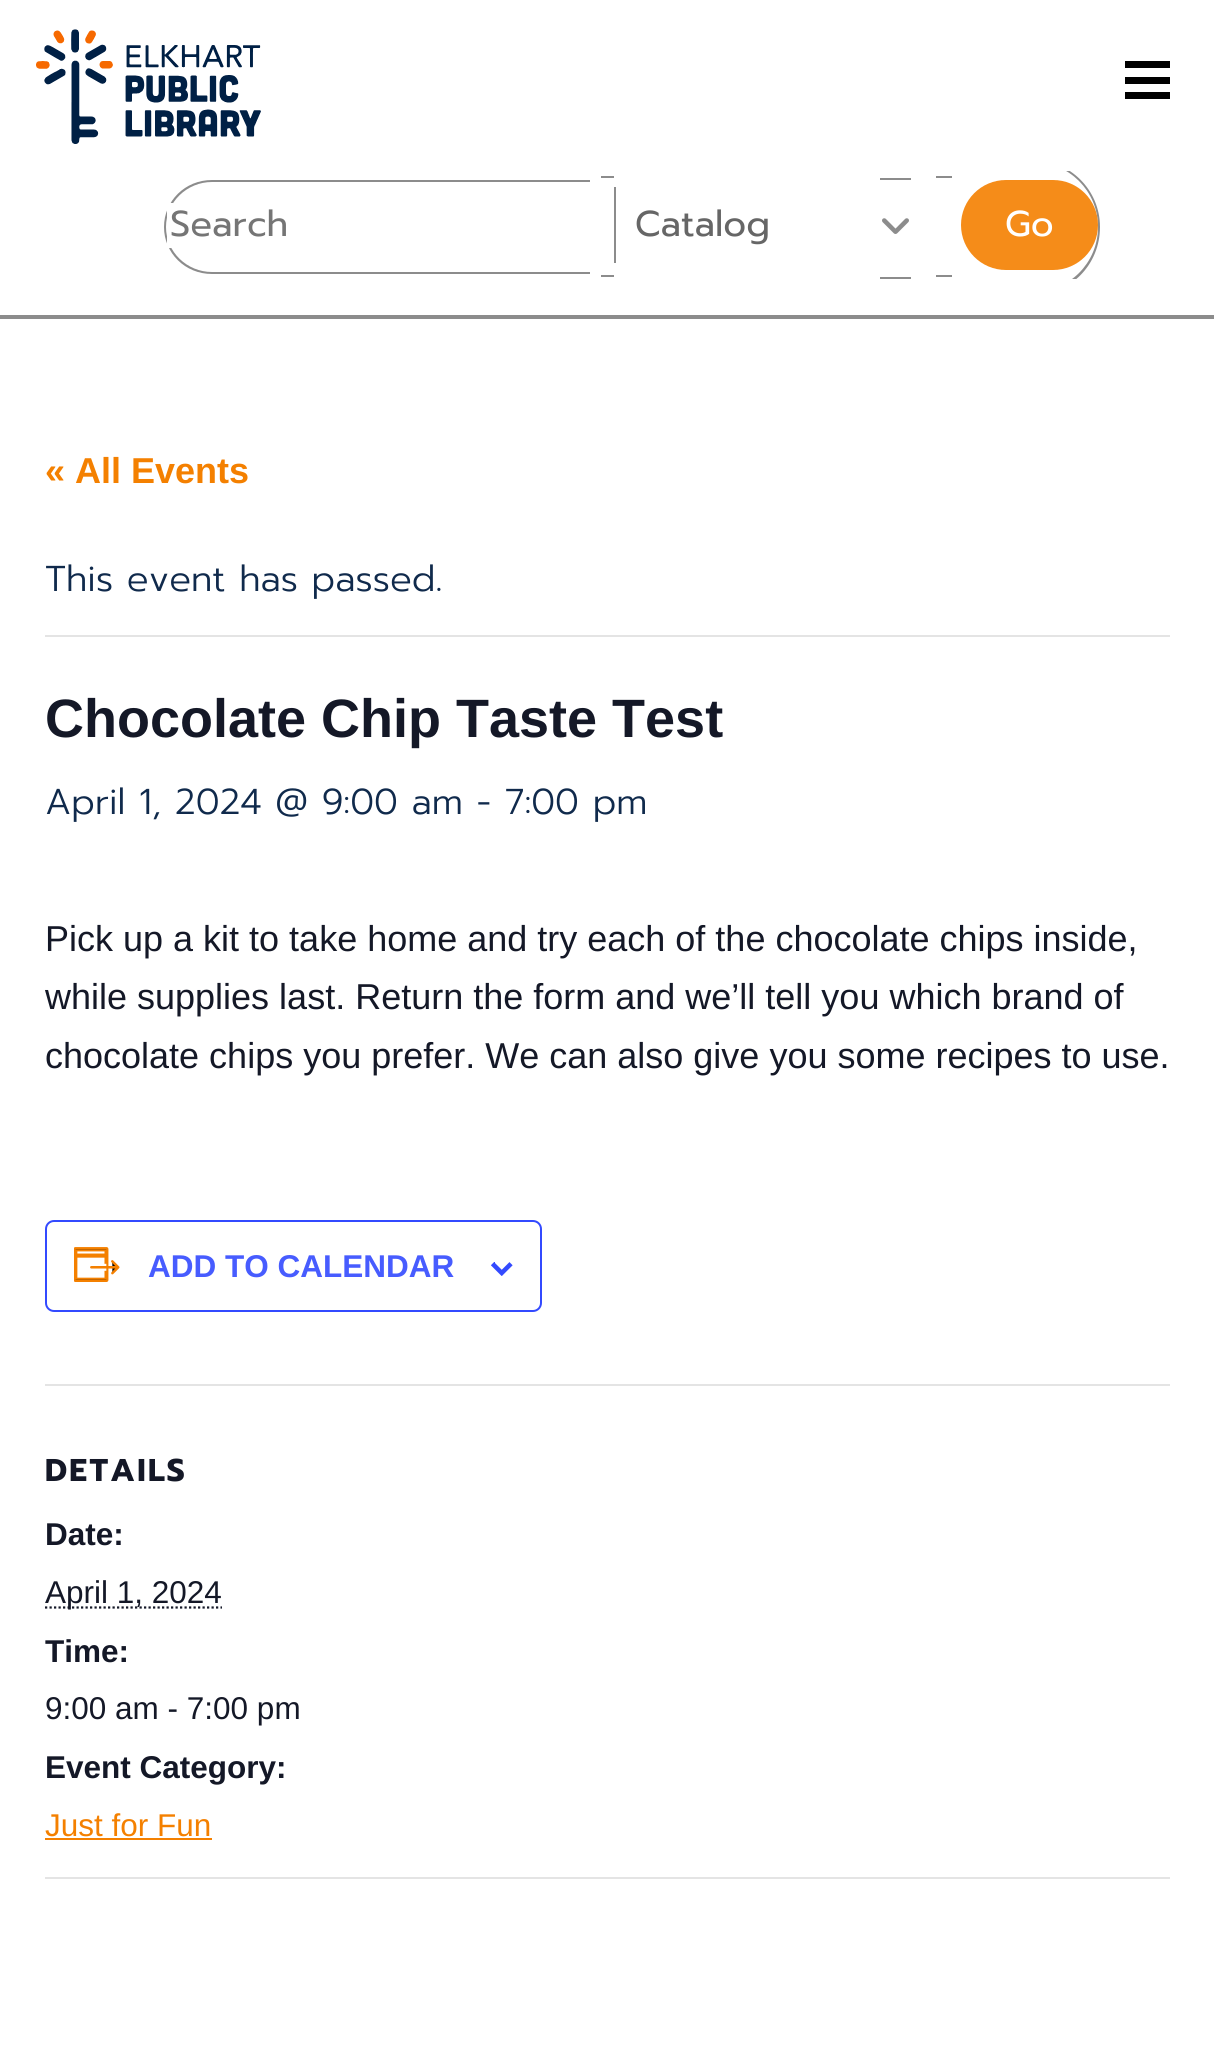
import math
import cairo

surface = cairo.ImageSurface(cairo.Format.RGB24, 1214, 2052)
ctx = cairo.Context(surface)
options = cairo.FontOptions()
options.set_hint_metrics(cairo.HintMetrics.OFF)
options.set_hint_style(cairo.HintStyle.NONE)
ctx.set_font_options(options)
ctx.set_miter_limit(4)


def ink(r, g, b):
    ctx.set_source_rgb(r / 255, g / 255, b / 255)


def write(x, y, s, family, size, color, bold=False, italic=False):
    ctx.select_font_face(family, cairo.FontSlant.ITALIC if italic else cairo.FontSlant.NORMAL, cairo.FontWeight.BOLD if bold else cairo.FontWeight.NORMAL)
    ctx.set_font_size(size)
    ink(*color)
    ctx.move_to(x, y)
    ctx.show_text(s)


def write_spaced(x, y, s, letter, word):
    ctx.move_to(x, y)
    for ch in s:
        ctx.show_text(ch)
        ctx.rel_move_to(letter + word * (ch == ' '), 0)


def block(x, y, w, h, *color):
    ink(*color)
    ctx.rectangle(x, y, w, h)
    ctx.fill()


def round_path(x, y, w, h, r):
    ctx.new_sub_path()
    for i, (u, v) in enumerate([(x + w - r, y + h - r), (x + r, y + h - r), (x + r, y + r), (x + w - r, y + r)]):
        ctx.arc(u, v, r, i * math.pi / 2, (i + 1) * math.pi / 2)
    ctx.close_path()


def paste(path, x, y, w, h):
    ctx.save()
    ctx.set_source_surface(cairo.ImageSurface.create_from_png(path), x, y)
    ctx.rectangle(x, y, w, h)
    ctx.fill()
    ctx.restore()


s1 = dict(family="Prompt", size=36, color=(117, 117, 117))
s2 = dict(family="Prompt", size=36, color=(102, 102, 102))
s3 = dict(family="Prompt", size=36, color=(255, 255, 255))
s4 = dict(family="Liberation Sans", size=36, color=(244, 128, 0), bold=True)
s5 = dict(family="Prompt Light", size=36, color=(16, 42, 76))
s6 = dict(family="Liberation Sans", size=54, color=(20, 24, 39), bold=True)
s7 = dict(family="Liberation Sans", size=36, color=(20, 24, 39))
s8 = dict(family="Liberation Sans", size=31.5, color=(71, 92, 255), bold=True)
s9 = dict(family="Liberation Sans", size=31.5, color=(20, 24, 39), bold=True)
s10 = dict(family="Liberation Sans", size=31.5, color=(20, 24, 39))
s11 = dict(family="Liberation Sans", size=31.5, color=(244, 128, 0))

ink(255, 255, 255)
ctx.paint()
paste("pic1.png", 36, 29, 225, 115)
block(1125, 61, 45, 7, 0, 0, 0)
block(1125, 77, 45, 7, 0, 0, 0)
block(1125, 92, 45, 7, 0, 0, 0)
ink(140, 140, 140)
ctx.set_fill_rule(cairo.FillRule.EVEN_ODD)
ctx.new_path()
ctx.move_to(212, 180)
ctx.line_to(590, 180)
ctx.line_to(590, 274)
ctx.line_to(212, 274)
ctx.curve_to(185, 274, 164, 253, 164, 227)
ctx.curve_to(164, 201, 185, 180, 212, 180)
ctx.close_path()
ctx.move_to(212, 182)
ctx.line_to(590, 182)
ctx.line_to(590, 272)
ctx.line_to(212, 272)
ctx.curve_to(187, 272, 166, 252, 166, 227)
ctx.curve_to(166, 202, 187, 182, 212, 182)
ctx.close_path()
ctx.fill()
block(601, 176, 13, 2, 140, 140, 140)
block(601, 275, 13, 2, 140, 140, 140)
block(936, 176, 16, 2, 140, 140, 140)
block(936, 275, 16, 2, 140, 140, 140)
block(880, 178, 31, 2, 140, 140, 140)
block(880, 277, 31, 2, 140, 140, 140)
ctx.save()
ctx.set_fill_rule(cairo.FillRule.WINDING)
ctx.rectangle(32, 171, 1152, 108)
ctx.clip()
ctx.set_fill_rule(cairo.FillRule.EVEN_ODD)
ctx.new_path()
ctx.move_to(961, 160)
ctx.line_to(1033, 160)
ctx.curve_to(1070, 160, 1100, 190, 1100, 227)
ctx.curve_to(1100, 265, 1070, 295, 1033, 295)
ctx.line_to(961, 295)
ctx.close_path()
ctx.move_to(961, 162)
ctx.line_to(1033, 162)
ctx.curve_to(1069, 162, 1098, 191, 1098, 227)
ctx.curve_to(1098, 263, 1069, 292, 1033, 292)
ctx.line_to(961, 292)
ctx.close_path()
ctx.fill()
ctx.restore()
block(167, 203, 7, 45, 255, 255, 255)
write(170, 236, "Search", **s1)
block(614, 187, 2, 76, 140, 140, 140)
write(635, 236, "Catalog", **s2)
paste("pic2.png", 882, 218, 27, 16)
ctx.set_source_rgba(0.957, 0.502, 0, 0.9)
round_path(961, 180, 137, 90, 45)
ctx.fill()
write(1005, 236, "Go", **s3)
block(0, 315, 1214, 4, 140, 140, 140)
write(45, 483, "« All Events", **s4)
block(45, 635, 1125, 2, 228, 228, 228)
write(45, 591, "This event has passed.", **s5)
write(45, 737, "Chocolate Chip Taste Test", **s6)
write(45, 814, "April 1, 2024 @ 9:00 am - 7:00 pm", **s5)
write(45, 951, "Pick up a kit to take home and try each of the chocolate chips inside,", **s7)
write(45, 1009, "while supplies last. Return the form and we’ll tell you which brand of", **s7)
write(45, 1068, "chocolate chips you prefer. We can also give you some recipes to use.", **s7)
round_path(46, 1221, 495, 90, 8)
ink(51, 74, 255)
ctx.stroke()
paste("pic3.png", 74, 1247, 46, 35)
write(148, 1277, "ADD TO CALENDAR", **s8)
paste("pic4.png", 491, 1262, 22, 14)
block(45, 1384, 1125, 2, 228, 228, 228)
ctx.select_font_face("Prompt", cairo.FontSlant.NORMAL, cairo.FontWeight.BOLD)
ink(20, 24, 39)
write_spaced(45, 1481, "DETAILS", 2.25, 0)
write(45, 1545, "Date:", **s9)
ctx.new_path()
ctx.move_to(45, 1607.5)
ctx.line_to(222, 1607.5)
ctx.set_line_width(2.2)
ctx.set_dash([2.25, 2.25])
ctx.stroke()
write(45, 1603, "April 1, 2024", **s10)
write(45, 1662, "Time:", **s9)
write(45, 1719, "9:00 am - 7:00 pm", **s10)
write(45, 1778, "Event Category:", **s9)
write(45, 1836, "Just for Fun", **s11)
block(45, 1838, 167, 2, 244, 128, 0)
block(45, 1877, 1125, 2, 228, 228, 228)
surface.write_to_png("screenshot.png")
